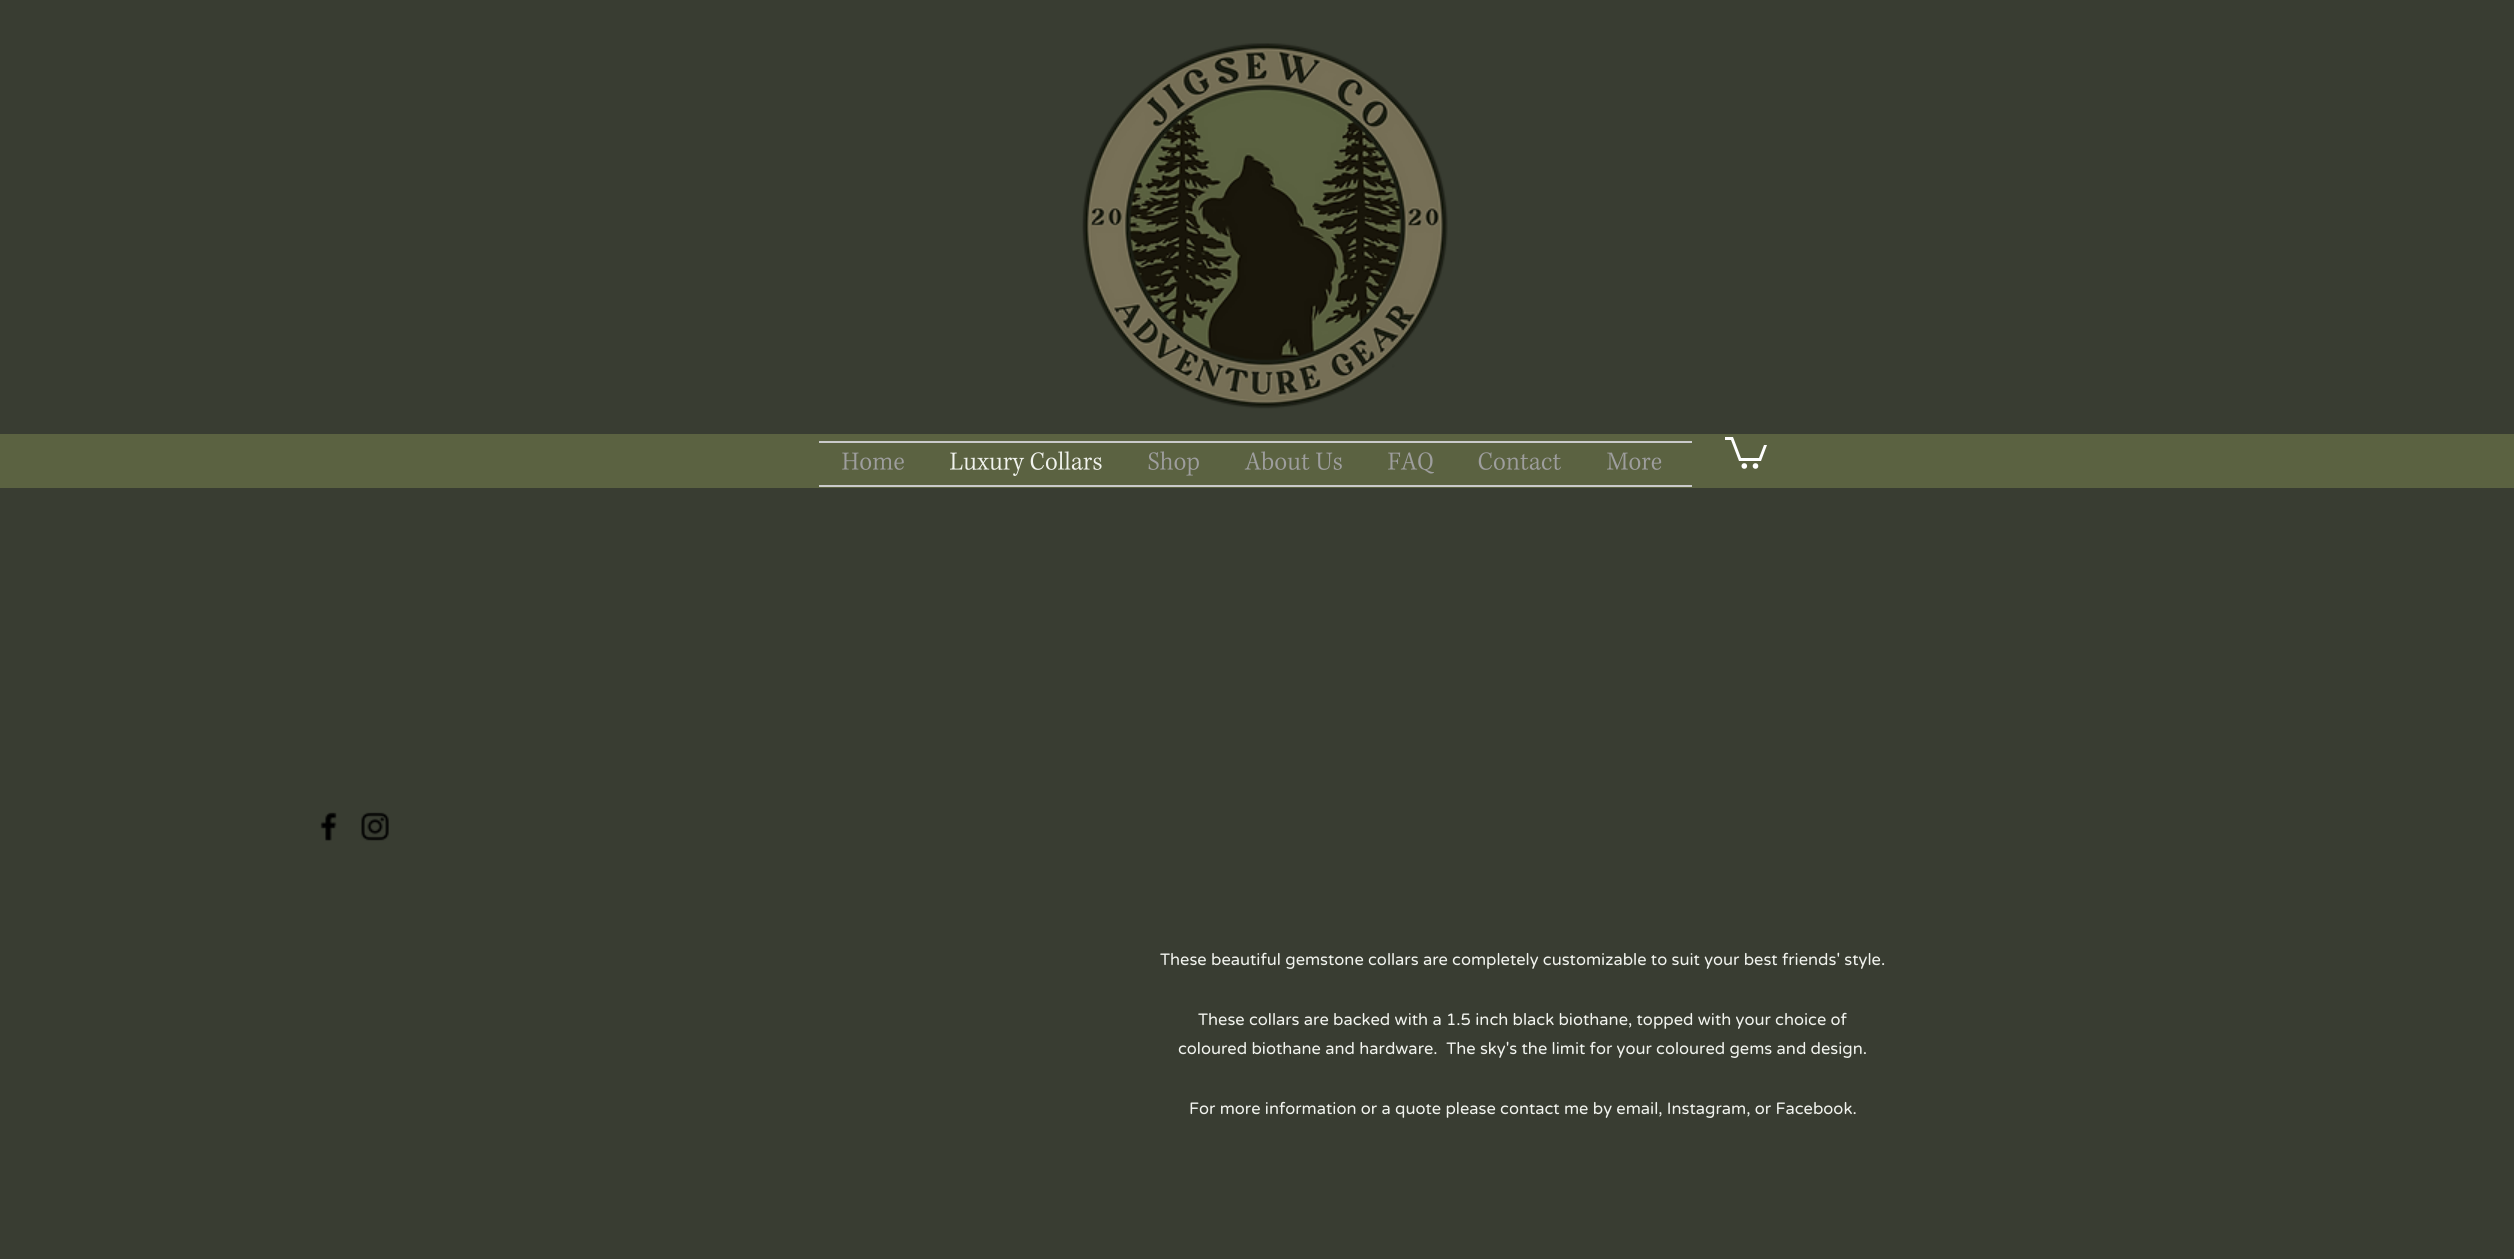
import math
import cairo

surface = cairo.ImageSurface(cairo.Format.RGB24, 2514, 1259)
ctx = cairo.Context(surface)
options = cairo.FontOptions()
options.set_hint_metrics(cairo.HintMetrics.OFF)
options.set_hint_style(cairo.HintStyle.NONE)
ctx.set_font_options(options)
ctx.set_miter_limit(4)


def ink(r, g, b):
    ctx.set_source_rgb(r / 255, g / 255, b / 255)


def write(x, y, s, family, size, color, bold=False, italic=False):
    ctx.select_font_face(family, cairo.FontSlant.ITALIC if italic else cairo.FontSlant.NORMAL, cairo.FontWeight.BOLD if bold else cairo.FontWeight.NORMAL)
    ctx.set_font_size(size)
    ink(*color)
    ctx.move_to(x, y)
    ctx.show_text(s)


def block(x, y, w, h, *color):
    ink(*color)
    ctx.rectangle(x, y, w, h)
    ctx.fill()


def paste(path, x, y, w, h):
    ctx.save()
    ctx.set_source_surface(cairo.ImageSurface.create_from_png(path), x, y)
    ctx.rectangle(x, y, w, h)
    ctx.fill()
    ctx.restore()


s1 = dict(family="Varela Round", size=16.5, color=(241, 243, 238))

ink(57, 61, 50)
ctx.paint()
paste("pic1.png", 1082, 43, 366, 366)
block(0, 434, 2514, 54, 91, 98, 65)
block(819, 441, 873, 2, 202, 202, 202)
block(819, 485, 873, 2, 202, 202, 202)
paste("pic2.png", 842, 452, 62, 18)
paste("pic3.png", 950, 451, 152, 25)
paste("pic4.png", 1148, 451, 51, 25)
paste("pic5.png", 1244, 451, 98, 19)
paste("pic6.png", 1388, 452, 46, 22)
paste("pic7.png", 1478, 452, 83, 18)
paste("pic8.png", 1607, 452, 55, 18)
ink(255, 255, 255)
ctx.new_path()
ctx.move_to(1767, 445)
ctx.line_to(1761, 461)
ctx.line_to(1739, 461)
ctx.line_to(1731, 440)
ctx.line_to(1725, 440)
ctx.line_to(1725, 437)
ctx.line_to(1733, 437)
ctx.line_to(1741, 458)
ctx.line_to(1759, 458)
ctx.line_to(1764, 445)
ctx.fill()
ctx.arc(1755.5, 466, 2.8, 0, 2 * math.pi)
ctx.fill()
ctx.arc(1744.3, 466, 2.8, 0, 2 * math.pi)
ctx.fill()
paste("pic9.png", 320, 812, 17, 29)
paste("pic10.png", 361, 812, 28, 29)
write(1160, 965, "These beautiful gemstone collars are completely customizable to suit your best friends' style.", **s1)
write(1198, 1025, "These collars are backed with a 1.5 inch black biothane, topped with your choice of", **s1)
write(1178, 1054, "coloured biothane and hardware.  The sky's the limit for your coloured gems and design.", **s1)
write(1189, 1114, "For more information or a quote please contact me by email, Instagram, or Facebook.", **s1)
surface.write_to_png("screenshot.png")
